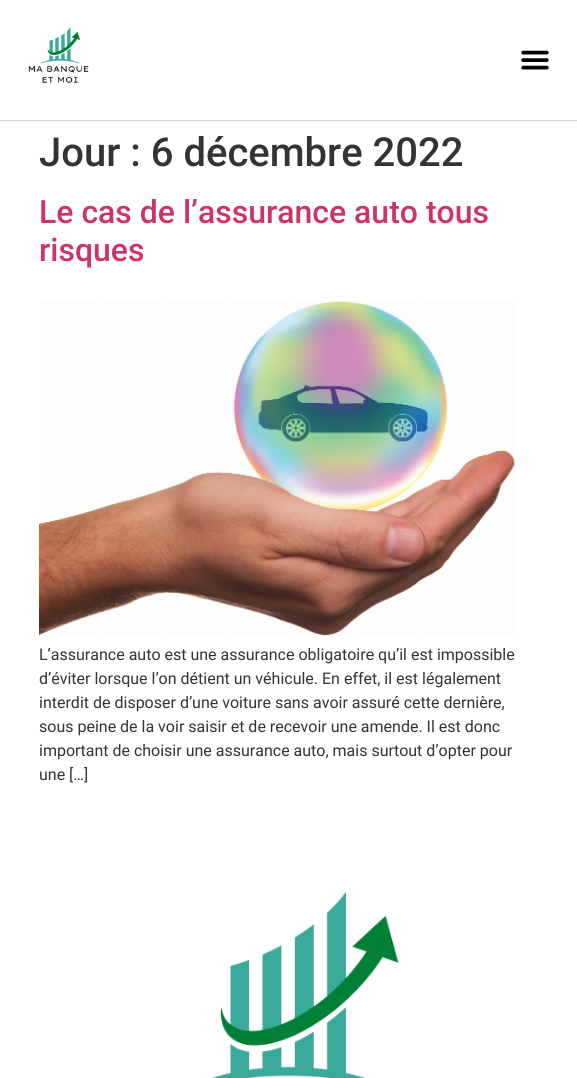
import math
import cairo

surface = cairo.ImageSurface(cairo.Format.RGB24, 577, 1078)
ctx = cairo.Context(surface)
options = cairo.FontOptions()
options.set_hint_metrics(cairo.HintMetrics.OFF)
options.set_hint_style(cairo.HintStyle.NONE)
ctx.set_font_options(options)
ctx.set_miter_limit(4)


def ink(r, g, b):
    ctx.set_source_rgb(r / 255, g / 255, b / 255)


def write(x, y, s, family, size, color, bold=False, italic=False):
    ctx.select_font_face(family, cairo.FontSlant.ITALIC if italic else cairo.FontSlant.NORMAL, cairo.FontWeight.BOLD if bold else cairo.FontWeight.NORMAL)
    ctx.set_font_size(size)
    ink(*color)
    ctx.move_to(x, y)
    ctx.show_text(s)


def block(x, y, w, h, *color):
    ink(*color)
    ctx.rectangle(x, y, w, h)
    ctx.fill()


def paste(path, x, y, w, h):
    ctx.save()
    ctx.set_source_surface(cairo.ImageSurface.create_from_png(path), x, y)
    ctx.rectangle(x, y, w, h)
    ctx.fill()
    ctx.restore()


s1 = dict(family="Roboto Medium", size=40, color=(51, 51, 51))
s2 = dict(family="Roboto Medium", size=32, color=(204, 51, 102))
s3 = dict(family="Roboto", size=16, color=(51, 51, 51))

ink(255, 255, 255)
ctx.paint()
block(0, 120, 577, 1, 211, 211, 211)
paste("pic1.png", 28, 27, 61, 56)
paste("pic2.png", 521, 50, 28, 20)
write(39, 166, "Jour : 6 décembre 2022", **s1)
write(39, 223, "Le cas de l’assurance auto tous", **s2)
write(39, 261, "risques", **s2)
paste("pic3.png", 39, 300, 477, 336)
write(39, 660, "L’assurance auto est une assurance obligatoire qu’il est impossible", **s3)
write(39, 684, "d’éviter lorsque l’on détient un véhicule. En effet, il est légalement", **s3)
write(39, 708, "interdit de disposer d’une voiture sans avoir assuré cette dernière,", **s3)
write(39, 732, "sous peine de la voir saisir et de recevoir une amende. Il est donc", **s3)
write(39, 756, "important de choisir une assurance auto, mais surtout d’opter pour", **s3)
write(39, 780, "une […]", **s3)
paste("pic4.png", 212, 891, 187, 187)
surface.write_to_png("screenshot.png")
